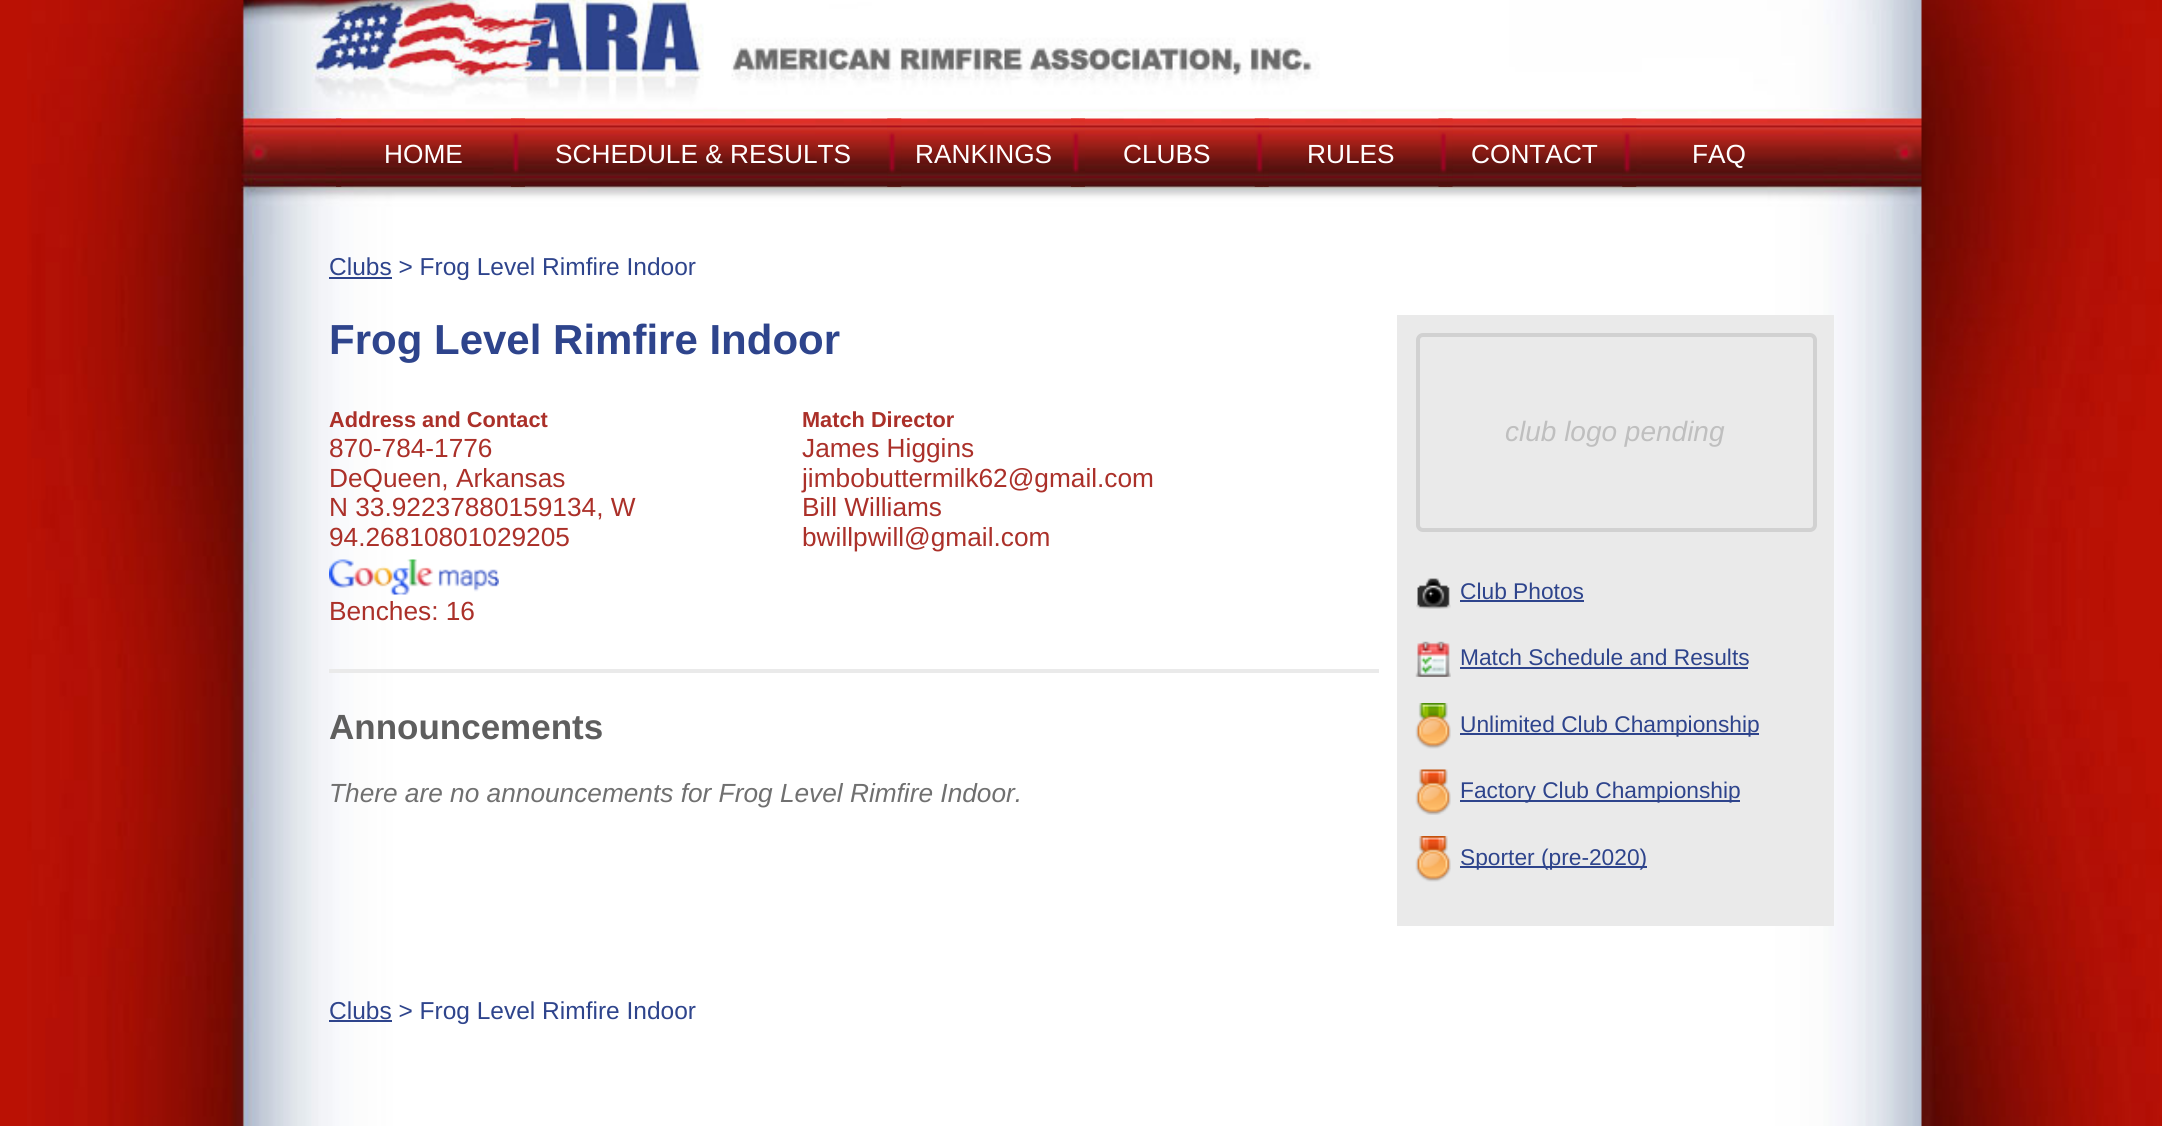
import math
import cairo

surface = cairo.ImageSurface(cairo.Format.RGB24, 2162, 1126)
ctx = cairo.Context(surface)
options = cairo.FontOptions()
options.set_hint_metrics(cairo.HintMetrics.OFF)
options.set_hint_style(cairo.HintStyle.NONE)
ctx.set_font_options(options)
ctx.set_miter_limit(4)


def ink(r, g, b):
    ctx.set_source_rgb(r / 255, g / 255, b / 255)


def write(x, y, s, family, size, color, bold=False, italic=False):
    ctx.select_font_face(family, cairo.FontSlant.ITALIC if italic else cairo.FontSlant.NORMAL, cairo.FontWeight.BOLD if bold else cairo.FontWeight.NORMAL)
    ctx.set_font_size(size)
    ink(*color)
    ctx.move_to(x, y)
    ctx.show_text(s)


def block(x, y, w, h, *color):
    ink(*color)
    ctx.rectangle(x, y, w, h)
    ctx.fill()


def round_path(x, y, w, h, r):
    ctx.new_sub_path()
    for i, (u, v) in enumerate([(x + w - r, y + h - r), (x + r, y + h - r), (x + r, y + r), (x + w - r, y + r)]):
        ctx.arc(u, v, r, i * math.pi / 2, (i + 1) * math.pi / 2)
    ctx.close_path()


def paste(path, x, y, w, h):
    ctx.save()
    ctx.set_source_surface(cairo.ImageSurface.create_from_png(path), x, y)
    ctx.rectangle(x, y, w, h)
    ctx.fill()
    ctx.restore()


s1 = dict(family="Liberation Sans", size=26.25, color=(255, 255, 255))
s2 = dict(family="Liberation Sans", size=24.5, color=(46, 68, 140))
s3 = dict(family="Liberation Sans", size=42, color=(46, 68, 140), bold=True)
s4 = dict(family="Liberation Sans", size=21.75, color=(171, 48, 41), bold=True)
s5 = dict(family="Liberation Sans", size=26.25, color=(171, 48, 41))
s6 = dict(family="Liberation Sans", size=28, color=(191, 191, 191), italic=True)
s7 = dict(family="Liberation Sans", size=22.75, color=(46, 68, 140))
s8 = dict(family="Liberation Sans", size=35, color=(94, 94, 94), bold=True)
s9 = dict(family="Liberation Sans", size=26.25, color=(112, 112, 112), italic=True)

ink(186, 17, 4)
ctx.paint()
paste("pic1.png", 27, 0, 2135, 1126)
paste("pic2.png", 336, 118, 6, 69)
write(384, 163, "HOME", **s1)
paste("pic3.png", 511, 118, 9, 69)
paste("pic4.png", 519, 118, 6, 69)
write(555, 163, "SCHEDULE & RESULTS", **s1)
paste("pic5.png", 887, 118, 9, 69)
paste("pic6.png", 896, 118, 6, 69)
write(915, 163, "RANKINGS", **s1)
paste("pic7.png", 1071, 118, 9, 69)
paste("pic8.png", 1079, 118, 6, 69)
write(1123, 163, "CLUBS", **s1)
paste("pic9.png", 1254, 118, 10, 69)
paste("pic10.png", 1263, 118, 6, 69)
write(1307, 163, "RULES", **s1)
paste("pic11.png", 1438, 118, 10, 69)
paste("pic12.png", 1447, 118, 6, 69)
write(1471, 163, "CONTACT", **s1)
paste("pic13.png", 1622, 118, 9, 69)
paste("pic14.png", 1631, 118, 6, 69)
write(1692, 163, "FAQ", **s1)
block(329, 277, 63, 2, 46, 68, 140)
write(329, 275, "Clubs > Frog Level Rimfire Indoor", **s2)
block(329, 669, 1050, 4, 234, 234, 234)
write(329, 354, "Frog Level Rimfire Indoor", **s3)
write(329, 427, "Address and Contact", **s4)
write(329, 457, "870-784-1776", **s5)
write(329, 487, "DeQueen, Arkansas", **s5)
write(329, 516, "N 33.92237880159134, W", **s5)
write(329, 546, "94.26810801029205", **s5)
paste("pic15.png", 329, 559, 170, 36)
write(329, 620, "Benches: 16", **s5)
write(802, 427, "Match Director", **s4)
write(802, 457, "James Higgins", **s5)
write(802, 487, "jimbobuttermilk62@gmail.com", **s5)
write(802, 516, "Bill Williams", **s5)
write(802, 546, "bwillpwill@gmail.com", **s5)
block(1397, 315, 437, 611, 234, 234, 234)
round_path(1418, 335, 397, 195, 5)
ink(209, 209, 209)
ctx.set_line_width(4)
ctx.stroke()
write(1505, 441, "club logo pending", **s6)
paste("pic16.png", 1416, 578, 35, 31)
write(1460, 599, "Club Photos", **s7)
block(1460, 600, 124, 2, 46, 68, 140)
paste("pic17.png", 1415, 641, 36, 36)
write(1460, 665, "Match Schedule and Results", **s7)
block(1460, 667, 288, 2, 46, 68, 140)
paste("pic18.png", 1415, 703, 36, 46)
block(1460, 733, 299, 2, 46, 68, 140)
write(1460, 732, "Unlimited Club Championship", **s7)
paste("pic19.png", 1415, 769, 36, 46)
block(1460, 800, 280, 2, 46, 68, 140)
write(1460, 798, "Factory Club Championship", **s7)
paste("pic20.png", 1415, 836, 36, 46)
block(1460, 866, 187, 2, 46, 68, 140)
write(1460, 865, "Sporter (pre-2020)", **s7)
write(329, 739, "Announcements", **s8)
write(329, 802, "There are no announcements for Frog Level Rimfire Indoor.", **s9)
block(329, 1020, 63, 2, 46, 68, 140)
write(329, 1019, "Clubs > Frog Level Rimfire Indoor", **s2)
surface.write_to_png("screenshot.png")
